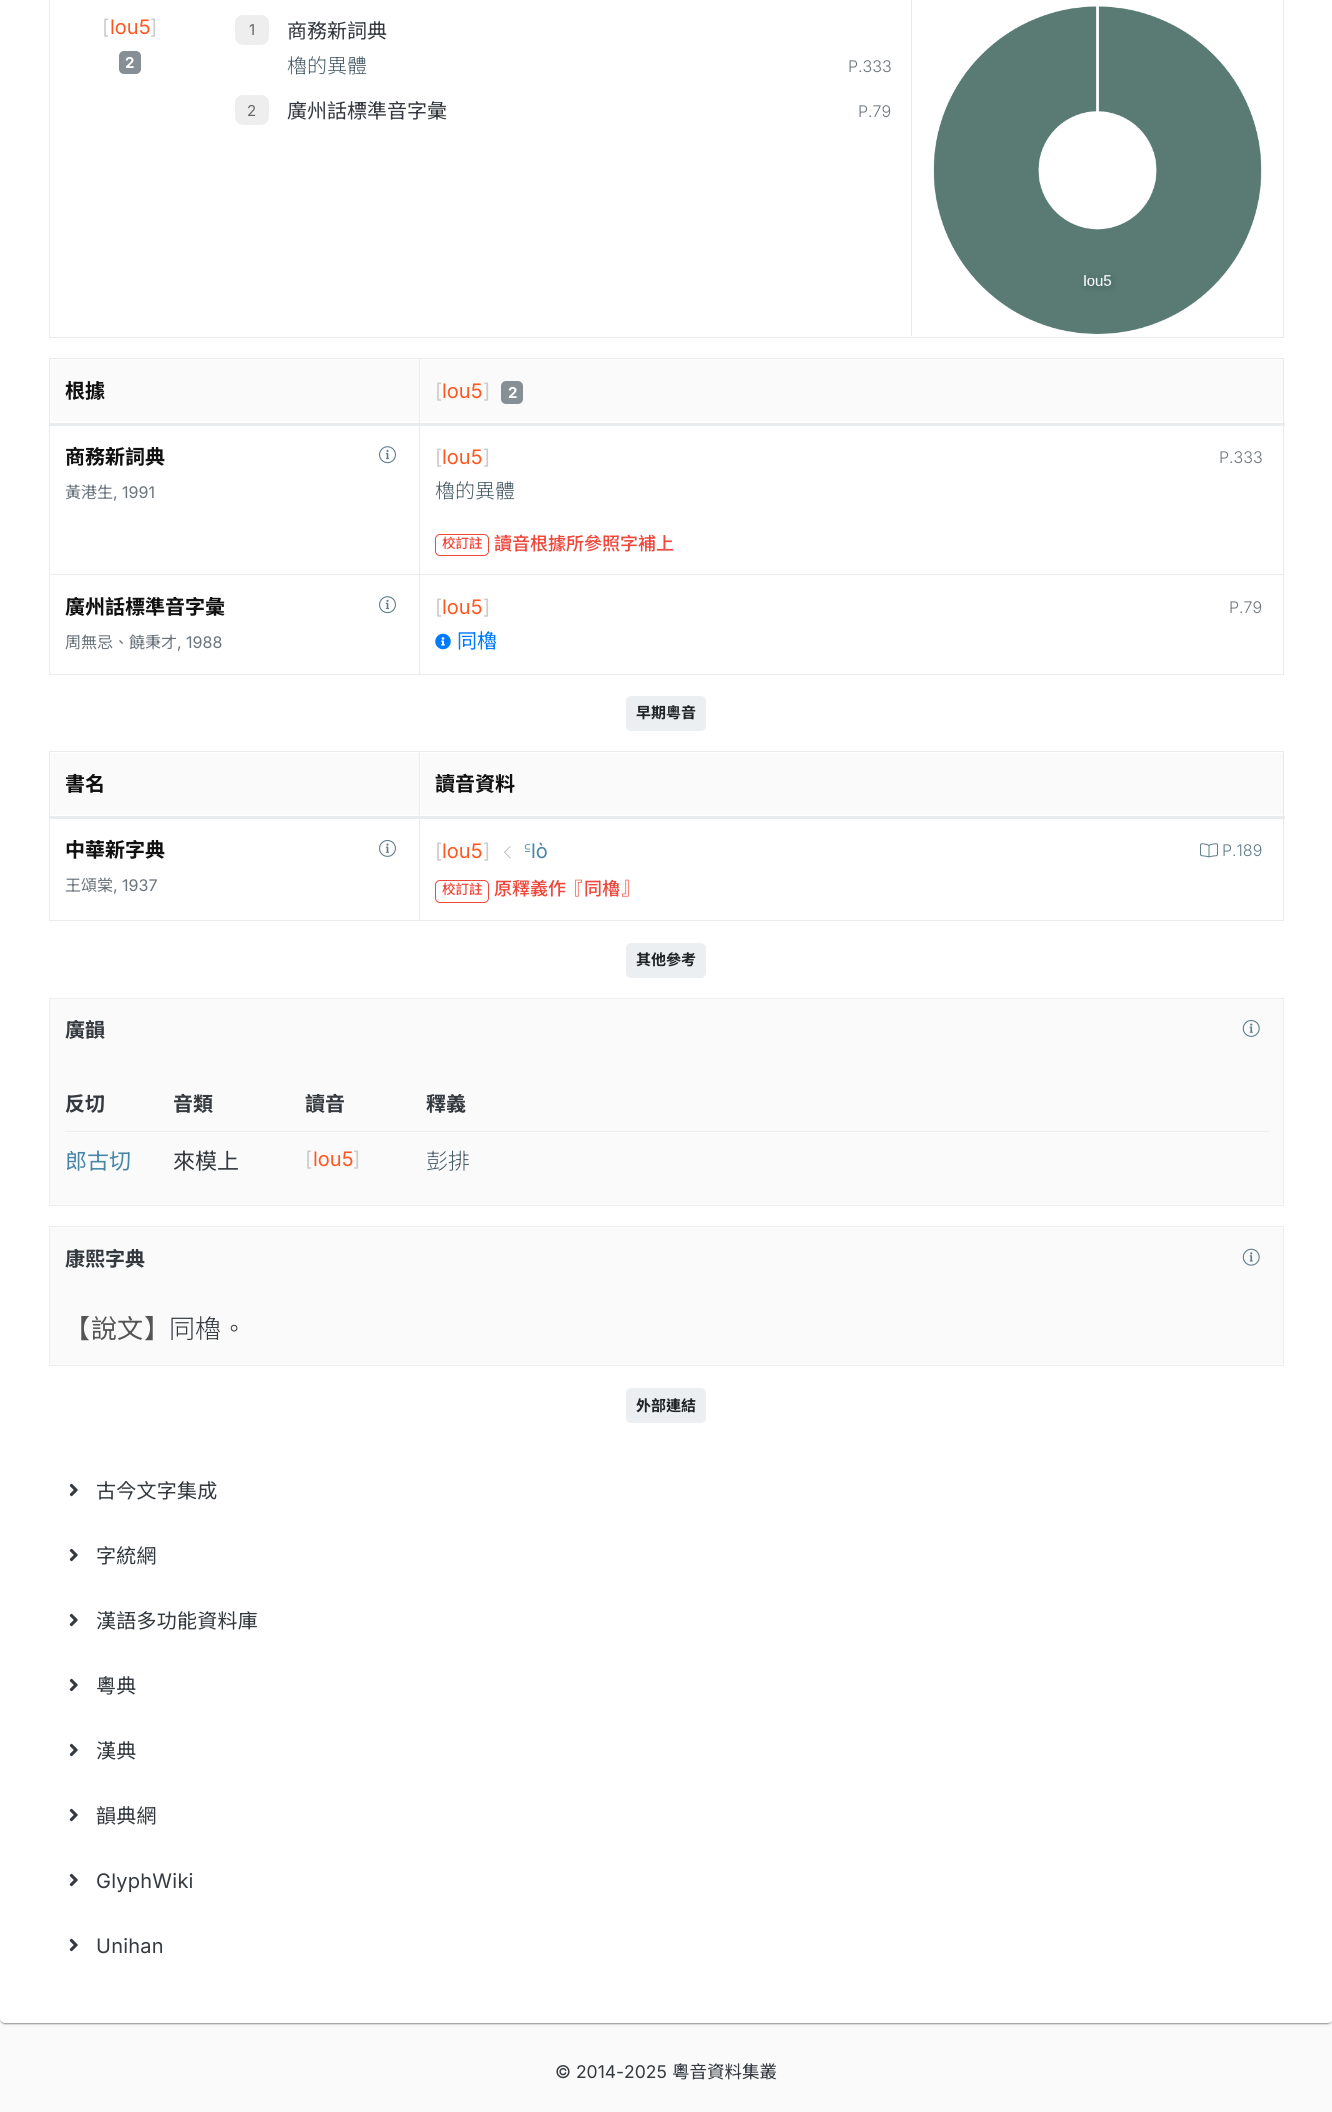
import math
import cairo

surface = cairo.ImageSurface(cairo.Format.RGB24, 1332, 2112)
ctx = cairo.Context(surface)
options = cairo.FontOptions()
options.set_hint_metrics(cairo.HintMetrics.OFF)
options.set_hint_style(cairo.HintStyle.NONE)
ctx.set_font_options(options)
ctx.set_miter_limit(4)


def ink(r, g, b):
    ctx.set_source_rgb(r / 255, g / 255, b / 255)


def write(x, y, s, family, size, color, bold=False, italic=False):
    ctx.select_font_face(family, cairo.FontSlant.ITALIC if italic else cairo.FontSlant.NORMAL, cairo.FontWeight.BOLD if bold else cairo.FontWeight.NORMAL)
    ctx.set_font_size(size)
    ink(*color)
    ctx.move_to(x, y)
    ctx.show_text(s)


def write_spaced(x, y, s, letter, word):
    ctx.move_to(x, y)
    for ch in s:
        ctx.show_text(ch)
        ctx.rel_move_to(letter + word * (ch == ' '), 0)


def block(x, y, w, h, *color):
    ink(*color)
    ctx.rectangle(x, y, w, h)
    ctx.fill()


def round_path(x, y, w, h, r):
    ctx.new_sub_path()
    for i, (u, v) in enumerate([(x + w - r, y + h - r), (x + r, y + h - r), (x + r, y + r), (x + w - r, y + r)]):
        ctx.arc(u, v, r, i * math.pi / 2, (i + 1) * math.pi / 2)
    ctx.close_path()


def blur_box(x, y, w, h, r, blur, alpha):
    ctx.push_group_with_content(cairo.Content.ALPHA)
    ctx.set_operator(cairo.Operator.SOURCE)
    for i in range(15, -16, -2):
        e = blur * i / 6
        if min(w, h) + 2 * e > 0:
            ctx.set_source_rgba(0, 0, 0, alpha * math.erfc((i - 1) / 8.5) / 2)
            round_path(x - e, y - e, w + 2 * e, h + 2 * e, max(0, min(r + e + blur * .6, min(w, h) / 2 + e)))
            ctx.fill()
    ctx.mask(ctx.pop_group())


def paste(path, x, y, w, h):
    ctx.save()
    ctx.set_source_surface(cairo.ImageSurface.create_from_png(path), x, y)
    ctx.rectangle(x, y, w, h)
    ctx.fill()
    ctx.restore()


s1 = dict(family="Inter", size=20, color=(204, 204, 204))
s2 = dict(family="Inter", size=20, color=(255, 87, 34))
s3 = dict(family="Inter", size=15, color=(255, 255, 255), bold=True)
s4 = dict(family="Inter", size=15, color=(102, 102, 102))
s5 = dict(family="Chiron Hei HK", size=20, color=(52, 58, 64))
s6 = dict(family="Chiron Hei HK Light", size=20, color=(69, 90, 100))
s7 = dict(family="Inter Light", size=16, color=(108, 117, 125))
s8 = dict(family="Chiron Hei HK", size=20, color=(17, 17, 17), bold=True)
s9 = dict(family="Chiron Hei HK", size=16, color=(108, 117, 125))
s10 = dict(family="Inter", size=16, color=(108, 117, 125))
s11 = dict(family="Chiron Hei HK Medium", size=13.5, color=(239, 72, 60))
s12 = dict(family="Chiron Hei HK Medium", size=18, color=(239, 72, 60))
s13 = dict(family="Chiron Hei HK", size=20, color=(0, 123, 255))
s14 = dict(family="Chiron Hei HK", size=15, color=(33, 37, 41), bold=True)
s15 = dict(family="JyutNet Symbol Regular", size=20, color=(71, 134, 167))
s16 = dict(family="Inter", size=20, color=(71, 134, 167))
s17 = dict(family="Inter Light", size=16, color=(96, 125, 139))
s18 = dict(family="Chiron Hei HK", size=20, color=(52, 58, 64), bold=True)
s19 = dict(family="Chiron Hei HK", size=22, color=(71, 134, 167))
s20 = dict(family="Chiron Hei HK", size=22, color=(52, 58, 64))
s21 = dict(family="Chiron Hei HK Light", size=22, color=(69, 90, 100))
s22 = dict(family="Chiron Hei HK", size=26, color=(85, 85, 85))
s23 = dict(family="Chiron Hei HK Light", size=26, color=(52, 58, 64))
s24 = dict(family="Inter", size=17.5, color=(52, 58, 64))
s25 = dict(family="Chiron Hei HK", size=17.5, color=(52, 58, 64))

ink(250, 250, 250)
ctx.paint()
ink(0, 0, 0)
blur_box(0, -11, 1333, 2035, 5, 2, 0.12)
blur_box(0, -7, 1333, 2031, 5, 0.5, 0.14)
blur_box(1, -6, 1330, 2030, 4, 0.5, 0.2)
ink(255, 255, 255)
round_path(0, -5, 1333, 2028, 5)
ctx.fill()
ctx.rectangle(49.5, -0.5, 1234, 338)
ink(233, 236, 239)
ctx.set_line_width(1)
ctx.stroke()
block(911, 0, 1, 336, 233, 236, 239)
write(102, 34, "[", **s1)
write(110, 34, "lou5", **s2)
write(150, 34, "]", **s1)
ink(134, 142, 150)
round_path(119, 51, 22, 23, 5)
ctx.fill()
write(125, 68, "2", **s3)
ink(238, 238, 238)
round_path(235, 15, 34, 30, 8)
ctx.fill()
write(249, 35, "1", **s4)
write(287, 38, "商務新詞典", **s5)
write(287, 73, "櫓的異體", **s6)
write(848, 72, "P.333", **s7)
ink(238, 238, 238)
round_path(235, 95, 34, 30, 8)
ctx.fill()
write(247, 116, "2", **s4)
write(287, 118, "廣州話標準音字彙", **s5)
write(858, 117, "P.79", **s7)
paste("pic1.png", 933, 6, 329, 328)
block(49, 358, 1235, 1, 233, 236, 239)
block(1283, 358, 1, 317, 233, 236, 239)
block(49, 674, 1235, 1, 233, 236, 239)
block(49, 358, 1, 317, 233, 236, 239)
block(51, 360, 368, 61, 250, 250, 250)
write(65, 398, "根據", **s8)
block(421, 360, 862, 61, 250, 250, 250)
block(419, 574, 865, 1, 233, 236, 239)
block(419, 574, 1, 101, 233, 236, 239)
block(49, 574, 371, 1, 233, 236, 239)
block(419, 358, 1, 217, 233, 236, 239)
block(49, 423, 1236, 3, 233, 236, 239)
write(435, 398, "[", **s1)
write(442, 398, "lou5", **s2)
write(483, 398, "]", **s1)
ink(134, 142, 150)
round_path(501, 381, 22, 23, 5)
ctx.fill()
write(508, 398, "2", **s3)
write(65, 464, "商務新詞典", **s8)
paste("pic2.png", 379, 446, 17, 18)
write(65, 498, "黃港生", **s9)
write(113, 498, ", 1991", **s10)
write(435, 464, "[", **s1)
write(442, 464, "lou5", **s2)
write(483, 464, "]", **s1)
write(1219, 463, "P.333", **s7)
write(435, 498, "櫓的異體", **s6)
round_path(435.5, 534.5, 53, 21, 4.5)
ink(239, 72, 60)
ctx.stroke()
write(442, 548, "校訂註", **s11)
write(494, 550, "讀音根據所參照字補上", **s12)
write(65, 614, "廣州話標準音字彙", **s8)
paste("pic2.png", 379, 596, 17, 18)
write(65, 648, "周無忌、饒秉才", **s9)
write(177, 648, ", 1988", **s10)
write(435, 614, "[", **s1)
write(442, 614, "lou5", **s2)
write(483, 614, "]", **s1)
write(1229, 613, "P.79", **s7)
paste("pic3.png", 435, 633, 16, 17)
write(457, 648, "同櫓", **s13)
ink(236, 239, 241)
round_path(626, 696, 80, 35, 5)
ctx.fill()
write(636, 718, "早期粵音", **s14)
block(49, 751, 1235, 1, 233, 236, 239)
block(1283, 751, 1, 170, 233, 236, 239)
block(49, 920, 1235, 1, 233, 236, 239)
block(49, 751, 1, 170, 233, 236, 239)
block(51, 753, 368, 62, 250, 250, 250)
write(65, 791, "書名", **s8)
block(421, 753, 862, 62, 250, 250, 250)
block(419, 751, 1, 170, 233, 236, 239)
block(49, 816, 1236, 3, 233, 236, 239)
write(435, 791, "讀音資料", **s8)
write(65, 857, "中華新字典", **s8)
paste("pic4.png", 379, 840, 17, 17)
write(65, 891, "王頌棠", **s9)
write(113, 891, ", 1937", **s10)
write(435, 858, "[", **s1)
write(442, 858, "lou5", **s2)
write(483, 858, "]", **s1)
paste("pic5.png", 504, 846, 7, 13)
write(524, 858, "꜃", **s15)
write(531, 858, "lò", **s16)
paste("pic6.png", 1200, 843, 18, 15)
write(1222, 856, "P.189", **s17)
round_path(435.5, 880.5, 53, 22, 4.5)
ink(239, 72, 60)
ctx.stroke()
write(442, 894, "校訂註", **s11)
write(494, 895, "原釋義作『同櫓』", **s12)
ink(236, 239, 241)
round_path(626, 943, 80, 35, 5)
ctx.fill()
write(636, 965, "其他參考", **s14)
ink(250, 250, 250)
ctx.rectangle(49.5, 998.5, 1234, 207)
ctx.fill_preserve()
ink(238, 238, 238)
ctx.stroke()
write(65, 1037, "廣韻", **s18)
paste("pic7.png", 1242, 1020, 18, 17)
write(65, 1111, "反切", **s18)
write(173, 1111, "音類", **s18)
write(305, 1111, "讀音", **s18)
write(426, 1111, "釋義", **s18)
block(65, 1131, 1204, 1, 238, 238, 238)
write(65, 1169, "郎古切", **s19)
write(173, 1169, "來模上", **s20)
write(305, 1166, "[", **s1)
write(313, 1166, "lou5", **s2)
write(353, 1166, "]", **s1)
write(426, 1169, "彭排", **s21)
ink(250, 250, 250)
ctx.rectangle(49.5, 1226.5, 1234, 139)
ctx.fill_preserve()
ink(238, 238, 238)
ctx.stroke()
write(65, 1266, "康熙字典", **s18)
paste("pic8.png", 1242, 1248, 18, 18)
write(65, 1338, "【說文】", **s22)
write(169, 1338, "同櫓。", **s23)
ink(236, 239, 241)
round_path(626, 1388, 80, 35, 5)
ctx.fill()
write(636, 1411, "外部連結", **s14)
paste("pic9.png", 69, 1483, 9, 14)
ctx.select_font_face("Chiron Hei HK")
ctx.set_font_size(20)
ink(52, 58, 64)
write_spaced(96, 1498, "古今文字集成", 0.25, 0)
paste("pic9.png", 69, 1548, 9, 14)
write_spaced(96, 1563, "字統網", 0.25, 0)
paste("pic9.png", 69, 1613, 9, 14)
write_spaced(96, 1628, "漢語多功能資料庫", 0.25, 0)
paste("pic9.png", 69, 1678, 9, 14)
write_spaced(96, 1693, "粵典", 0.25, 0)
paste("pic9.png", 69, 1743, 9, 14)
write_spaced(96, 1758, "漢典", 0.25, 0)
paste("pic9.png", 69, 1808, 9, 14)
write_spaced(96, 1823, "韻典網", 0.25, 0)
paste("pic9.png", 69, 1873, 9, 14)
ctx.select_font_face("Inter")
write_spaced(96, 1888, "GlyphWiki", 0.25, 0)
paste("pic9.png", 69, 1938, 9, 14)
write_spaced(96, 1953, "Unihan", 0.25, 0)
write(555, 2078, "© 2014-2025", **s24)
write(672, 2078, "粵音資料集叢", **s25)
surface.write_to_png("screenshot.png")
